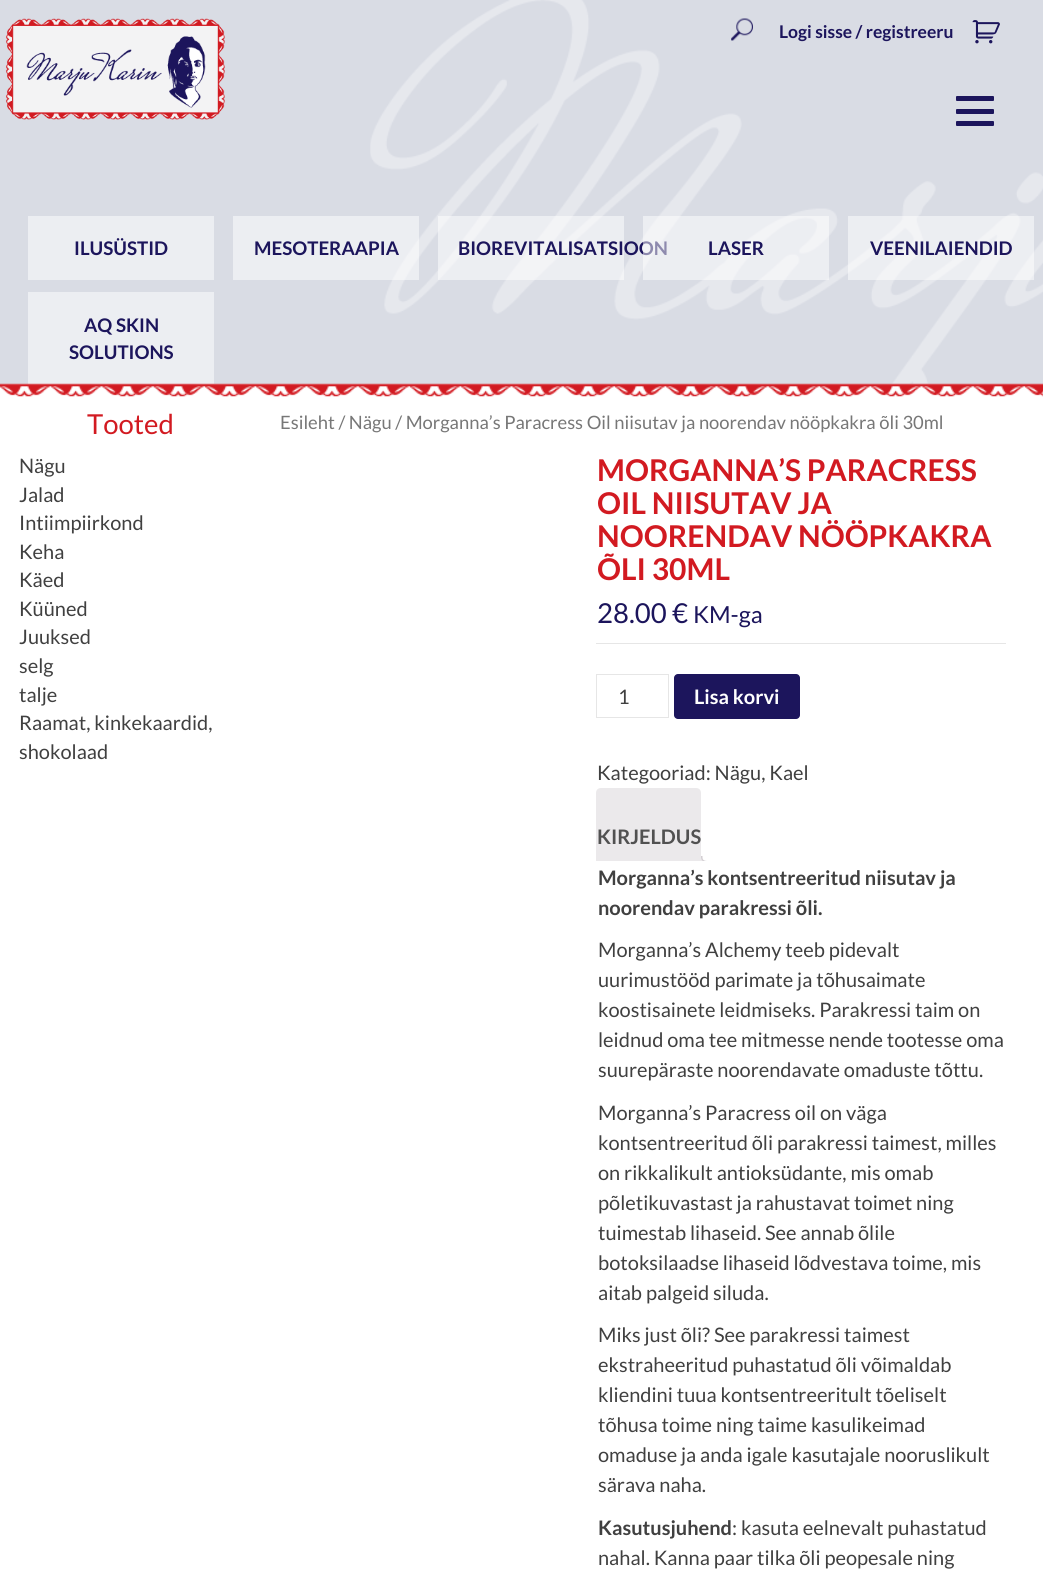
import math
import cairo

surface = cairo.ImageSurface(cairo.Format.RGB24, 1043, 1583)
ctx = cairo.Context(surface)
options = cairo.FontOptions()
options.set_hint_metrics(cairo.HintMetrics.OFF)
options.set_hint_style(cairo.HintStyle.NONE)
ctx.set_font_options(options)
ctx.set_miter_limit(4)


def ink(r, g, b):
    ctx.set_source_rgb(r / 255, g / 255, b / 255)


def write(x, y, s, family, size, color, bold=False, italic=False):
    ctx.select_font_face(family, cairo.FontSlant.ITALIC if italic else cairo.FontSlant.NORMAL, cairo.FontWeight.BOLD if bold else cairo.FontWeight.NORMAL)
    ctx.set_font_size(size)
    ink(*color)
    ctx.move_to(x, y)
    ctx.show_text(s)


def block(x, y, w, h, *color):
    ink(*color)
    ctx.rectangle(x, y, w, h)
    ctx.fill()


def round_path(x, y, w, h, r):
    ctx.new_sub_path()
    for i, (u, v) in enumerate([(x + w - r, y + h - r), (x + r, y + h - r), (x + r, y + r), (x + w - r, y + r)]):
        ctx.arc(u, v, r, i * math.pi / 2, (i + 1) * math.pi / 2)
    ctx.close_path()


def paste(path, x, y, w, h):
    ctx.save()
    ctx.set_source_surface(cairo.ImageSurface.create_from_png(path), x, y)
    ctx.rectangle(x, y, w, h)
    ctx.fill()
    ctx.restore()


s1 = dict(family="Lato", size=17.5, color=(28, 21, 92), bold=True)
s2 = dict(family="Lato", size=18.75, color=(28, 21, 92), bold=True)
s3 = dict(family="Lato", size=27.5, color=(210, 26, 33))
s4 = dict(family="Lato", size=20, color=(64, 64, 64))
s5 = dict(family="Lato", size=18.4, color=(119, 119, 119))
s6 = dict(family="Lato", size=30, color=(210, 26, 33), bold=True)
s7 = dict(family="Lato", size=27.5, color=(28, 21, 92))
s8 = dict(family="Lato", size=23.5, color=(28, 21, 92))
s9 = dict(family="Lato", size=20, color=(255, 255, 255), bold=True)
s10 = dict(family="Lato", size=20, color=(81, 81, 81), bold=True)
s11 = dict(family="Lato", size=20, color=(64, 64, 64), bold=True)

ink(217, 220, 228)
ctx.paint()
paste("pic1.png", 370, 0, 673, 384)
paste("pic2.png", 6, 18, 219, 102)
paste("pic3.png", 731, 18, 22, 23)
write(779, 38, "Logi sisse / registreeru", **s1)
paste("pic4.png", 972, 20, 28, 24)
round_path(956, 96, 38, 5, 1)
ctx.fill()
round_path(956, 109, 38, 5, 1)
ctx.fill()
round_path(956, 121, 38, 5, 1)
ctx.fill()
block(28, 216, 186, 64, 236, 238, 242)
write(74, 255, "ILUSÜSTID", **s2)
ctx.set_source_rgba(1, 1, 1, 0.5)
ctx.rectangle(233, 216, 186, 64)
ctx.fill()
write(254, 255, "MESOTERAAPIA", **s2)
ctx.set_source_rgba(1, 1, 1, 0.5)
ctx.rectangle(438, 216, 186, 64)
ctx.fill()
write(458, 255, "BIOREVITALISATSIOON", **s2)
ctx.set_source_rgba(1, 1, 1, 0.5)
ctx.rectangle(643, 216, 186, 64)
ctx.fill()
write(708, 255, "LASER", **s2)
ctx.set_source_rgba(1, 1, 1, 0.5)
ctx.rectangle(848, 216, 186, 64)
ctx.fill()
write(870, 255, "VEENILAIENDID", **s2)
block(28, 292, 186, 92, 236, 238, 242)
write(84, 332, "AQ SKIN", **s2)
write(69, 359, "SOLUTIONS", **s2)
block(0, 384, 1043, 1199, 255, 255, 255)
paste("pic5.png", 0, 383, 1043, 14)
write(87, 434, "Tooted", **s3)
write(19, 473, "Nägu", **s4)
write(19, 502, "Jalad", **s4)
write(19, 530, "Intiimpiirkond", **s4)
write(19, 559, "Keha", **s4)
write(19, 587, "Käed", **s4)
write(19, 616, "Küüned", **s4)
write(19, 644, "Juuksed", **s4)
write(19, 673, "selg", **s4)
write(19, 702, "talje", **s4)
write(19, 730, "Raamat, kinkekaardid,", **s4)
write(19, 759, "shokolaad", **s4)
write(280, 429, "Esileht / Nägu / Morganna’s Paracress Oil niisutav ja noorendav nööpkakra õli 30ml", **s5)
write(597, 481, "MORGANNA’S PARACRESS", **s6)
write(597, 514, "OIL NIISUTAV JA", **s6)
write(597, 547, "NOORENDAV NÖÖPKAKRA", **s6)
write(597, 580, "ÕLI 30ML", **s6)
write(597, 623, "28.00 €", **s7)
write(693, 623, "KM-ga", **s8)
block(596, 643, 410, 1, 230, 230, 230)
ctx.rectangle(596.5, 674.5, 72, 43)
ctx.set_line_width(1)
ctx.stroke()
write(618, 704, "1", **s4)
ink(28, 21, 92)
round_path(674, 674, 126, 45, 4)
ctx.fill()
write(694, 704, "Lisa korvi", **s9)
write(597, 780, "Kategooriad: Nägu, Kael", **s4)
ink(235, 233, 235)
ctx.new_path()
ctx.move_to(601, 788)
ctx.line_to(696, 788)
ctx.curve_to(699, 788, 701, 790, 701, 793)
ctx.line_to(701, 861)
ctx.line_to(596, 861)
ctx.line_to(596, 793)
ctx.curve_to(596, 790, 598, 788, 601, 788)
ctx.close_path()
ctx.fill()
write(597, 844, "KIRJELDUS", **s10)
ctx.save()
ctx.rectangle(596, 788, 410, 73)
ctx.clip()
ink(235, 233, 235)
ctx.new_path()
ctx.move_to(699, 859)
ctx.curve_to(699, 863, 701, 865, 705, 865)
ctx.line_to(705, 862.5)
ctx.curve_to(703.5, 862, 702, 860.5, 701.5, 859)
ctx.close_path()
ctx.fill()
ink(211, 206, 210)
ctx.set_fill_rule(cairo.FillRule.EVEN_ODD)
ctx.new_path()
ctx.move_to(701, 856)
ctx.line_to(707.5, 856)
ctx.line_to(707.5, 862.5)
ctx.curve_to(704.5, 862.5, 701, 861, 701, 857.5)
ctx.close_path()
ctx.move_to(702.5, 856)
ctx.line_to(707.5, 856)
ctx.line_to(707.5, 861)
ctx.curve_to(705, 861, 702.5, 860.5, 702.5, 857.5)
ctx.close_path()
ctx.fill()
ctx.restore()
write(598, 885, "Morganna’s kontsentreeritud niisutav ja", **s11)
write(598, 915, "noorendav parakressi õli.", **s11)
write(598, 957, "Morganna’s Alchemy teeb pidevalt", **s4)
write(598, 987, "uurimustööd parimate ja tõhusaimate", **s4)
write(598, 1017, "koostisainete leidmiseks. Parakressi taim on", **s4)
write(598, 1047, "leidnud oma tee mitmesse nende tootesse oma", **s4)
write(598, 1077, "suurepäraste noorendavate omaduste tõttu.", **s4)
write(598, 1120, "Morganna’s Paracress oil on väga", **s4)
write(598, 1150, "kontsentreeritud õli parakressi taimest, milles", **s4)
write(598, 1180, "on rikkalikult antioksüdante, mis omab", **s4)
write(598, 1210, "põletikuvastast ja rahustavat toimet ning", **s4)
write(598, 1240, "tuimestab lihaseid. See annab õlile", **s4)
write(598, 1270, "botoksilaadse lihaseid lõdvestava toime, mis", **s4)
write(598, 1300, "aitab palgeid siluda.", **s4)
write(598, 1342, "Miks just õli? See parakressi taimest", **s4)
write(598, 1372, "ekstraheeritud puhastatud õli võimaldab", **s4)
write(598, 1402, "kliendini tuua kontsentreeritult tõeliselt", **s4)
write(598, 1432, "tõhusa toime ning taime kasulikeimad", **s4)
write(598, 1462, "omaduse ja anda igale kasutajale nooruslikult", **s4)
write(598, 1492, "särava naha.", **s4)
write(598, 1535, "Kasutusjuhend", **s11)
write(732, 1535, ": kasuta eelnevalt puhastatud", **s4)
write(598, 1565, "nahal. Kanna paar tilka õli peopesale ning", **s4)
surface.write_to_png("screenshot.png")
